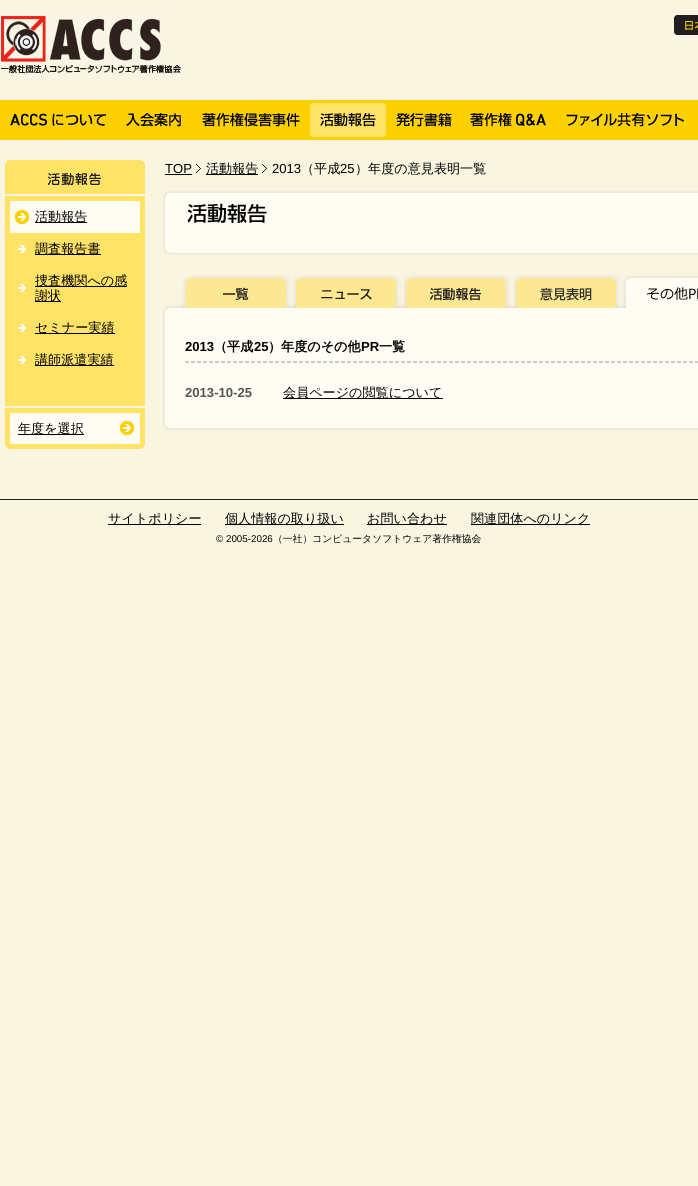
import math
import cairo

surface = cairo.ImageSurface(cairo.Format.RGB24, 698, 1186)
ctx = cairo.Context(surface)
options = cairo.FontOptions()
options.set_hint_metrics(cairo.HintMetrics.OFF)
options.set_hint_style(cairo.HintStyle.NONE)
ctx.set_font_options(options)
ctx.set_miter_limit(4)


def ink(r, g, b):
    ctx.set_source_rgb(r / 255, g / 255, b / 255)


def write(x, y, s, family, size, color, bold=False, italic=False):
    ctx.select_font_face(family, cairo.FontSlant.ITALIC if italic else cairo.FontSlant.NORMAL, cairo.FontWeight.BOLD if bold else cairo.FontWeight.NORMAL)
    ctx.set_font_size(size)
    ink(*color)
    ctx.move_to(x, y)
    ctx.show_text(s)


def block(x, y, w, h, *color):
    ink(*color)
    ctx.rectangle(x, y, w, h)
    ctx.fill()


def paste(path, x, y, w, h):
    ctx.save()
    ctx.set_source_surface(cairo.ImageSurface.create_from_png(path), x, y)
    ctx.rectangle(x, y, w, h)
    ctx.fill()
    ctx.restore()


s1 = dict(family="WenQuanYi Zen Hei Medium", size=13.1, color=(0, 0, 0))
s2 = dict(family="Liberation Sans", size=13.1, color=(0, 0, 0))
s3 = dict(family="Liberation Sans", size=13.1, color=(0, 0, 0), bold=True)
s4 = dict(family="WenQuanYi Zen Hei", size=13.1, color=(0, 0, 0), bold=True)
s5 = dict(family="Liberation Sans", size=13.1, color=(85, 85, 85), bold=True)
s6 = dict(family="Liberation Sans", size=9.8, color=(0, 0, 0))
s7 = dict(family="WenQuanYi Zen Hei Medium", size=9.8, color=(0, 0, 0))

ink(249, 245, 225)
ctx.paint()
paste("pic1.png", 0, 15, 181, 58)
paste("pic2.png", 674, 15, 24, 20)
block(0, 100, 698, 40, 253, 208, 0)
paste("pic3.png", 10, 113, 96, 13)
paste("pic4.png", 126, 113, 55, 14)
paste("pic5.png", 202, 113, 98, 14)
paste("pic6.png", 310, 103, 76, 34)
paste("pic7.png", 396, 113, 56, 14)
paste("pic8.png", 470, 113, 76, 14)
paste("pic9.png", 566, 113, 118, 14)
block(5, 196, 140, 248, 254, 227, 102)
paste("pic10.png", 5, 444, 140, 5)
paste("pic11.png", 5, 160, 140, 36)
block(10, 201, 130, 32, 255, 253, 243)
paste("pic12.png", 15, 210, 14, 14)
block(35, 222, 52, 1, 0, 0, 0)
write(35, 221, "活動報告", **s1)
paste("pic13.png", 18, 245, 8, 8)
block(35, 254, 66, 1, 0, 0, 0)
write(35, 253, "調査報告書", **s1)
paste("pic13.png", 18, 284, 8, 8)
block(35, 286, 92, 1, 0, 0, 0)
write(35, 285, "捜査機関への感", **s1)
block(35, 301, 26, 1, 0, 0, 0)
write(35, 300, "謝状", **s1)
paste("pic13.png", 18, 324, 8, 8)
block(35, 333, 80, 1, 0, 0, 0)
write(35, 332, "セミナー実績", **s1)
paste("pic13.png", 18, 356, 8, 8)
block(35, 365, 79, 1, 0, 0, 0)
write(35, 364, "講師派遣実績", **s1)
block(5, 406, 140, 2, 249, 245, 225)
block(10, 413, 130, 31, 255, 253, 243)
paste("pic12.png", 120, 421, 14, 14)
block(18, 434, 66, 1, 0, 0, 0)
write(18, 433, "年度を選択", **s1)
write(165, 173, "TOP", **s2)
block(165, 174, 27, 1, 0, 0, 0)
paste("pic14.png", 196, 164, 5, 9)
block(206, 174, 52, 1, 0, 0, 0)
write(206, 173, "活動報告", **s1)
paste("pic14.png", 262, 164, 5, 9)
write(272, 173, "2013", **s2)
write(301, 173, "（平成", **s1)
write(340, 173, "25", **s2)
write(355, 173, "）年度の意見表明一覧", **s1)
paste("pic15.png", 163, 191, 535, 64)
paste("pic16.png", 162, 303, 536, 15)
paste("pic17.png", 183, 275, 108, 33)
paste("pic18.png", 291, 275, 110, 33)
paste("pic19.png", 403, 275, 108, 33)
paste("pic20.png", 513, 275, 108, 33)
paste("pic21.png", 621, 275, 77, 33)
paste("pic22.png", 162, 318, 536, 105)
paste("pic23.png", 185, 361, 513, 2)
write(185, 351, "2013", **s3)
write(214, 351, "（平成", **s4)
write(254, 351, "25", **s3)
write(268, 351, "）年度のその他", **s4)
write(361, 351, "PR", **s3)
write(379, 351, "一覧", **s4)
write(185, 397, "2013-10-25", **s5)
block(283, 398, 160, 1, 0, 0, 0)
write(283, 397, "会員ページの閲覧について", **s1)
paste("pic24.png", 162, 423, 536, 8)
block(0, 499, 698, 1, 34, 30, 31)
block(108, 524, 93, 1, 0, 0, 0)
write(108, 523, "サイトポリシー", **s1)
block(225, 524, 119, 1, 0, 0, 0)
write(225, 523, "個人情報の取り扱い", **s1)
block(367, 524, 80, 1, 0, 0, 0)
write(367, 523, "お問い合わせ", **s1)
block(471, 524, 119, 1, 0, 0, 0)
write(471, 523, "関連団体へのリンク", **s1)
write(216, 542, "© 2005-2026", **s6)
write(273, 542, "（一社）コンピュータソフトウェア著作権協会", **s7)
surface.write_to_png("screenshot.png")
